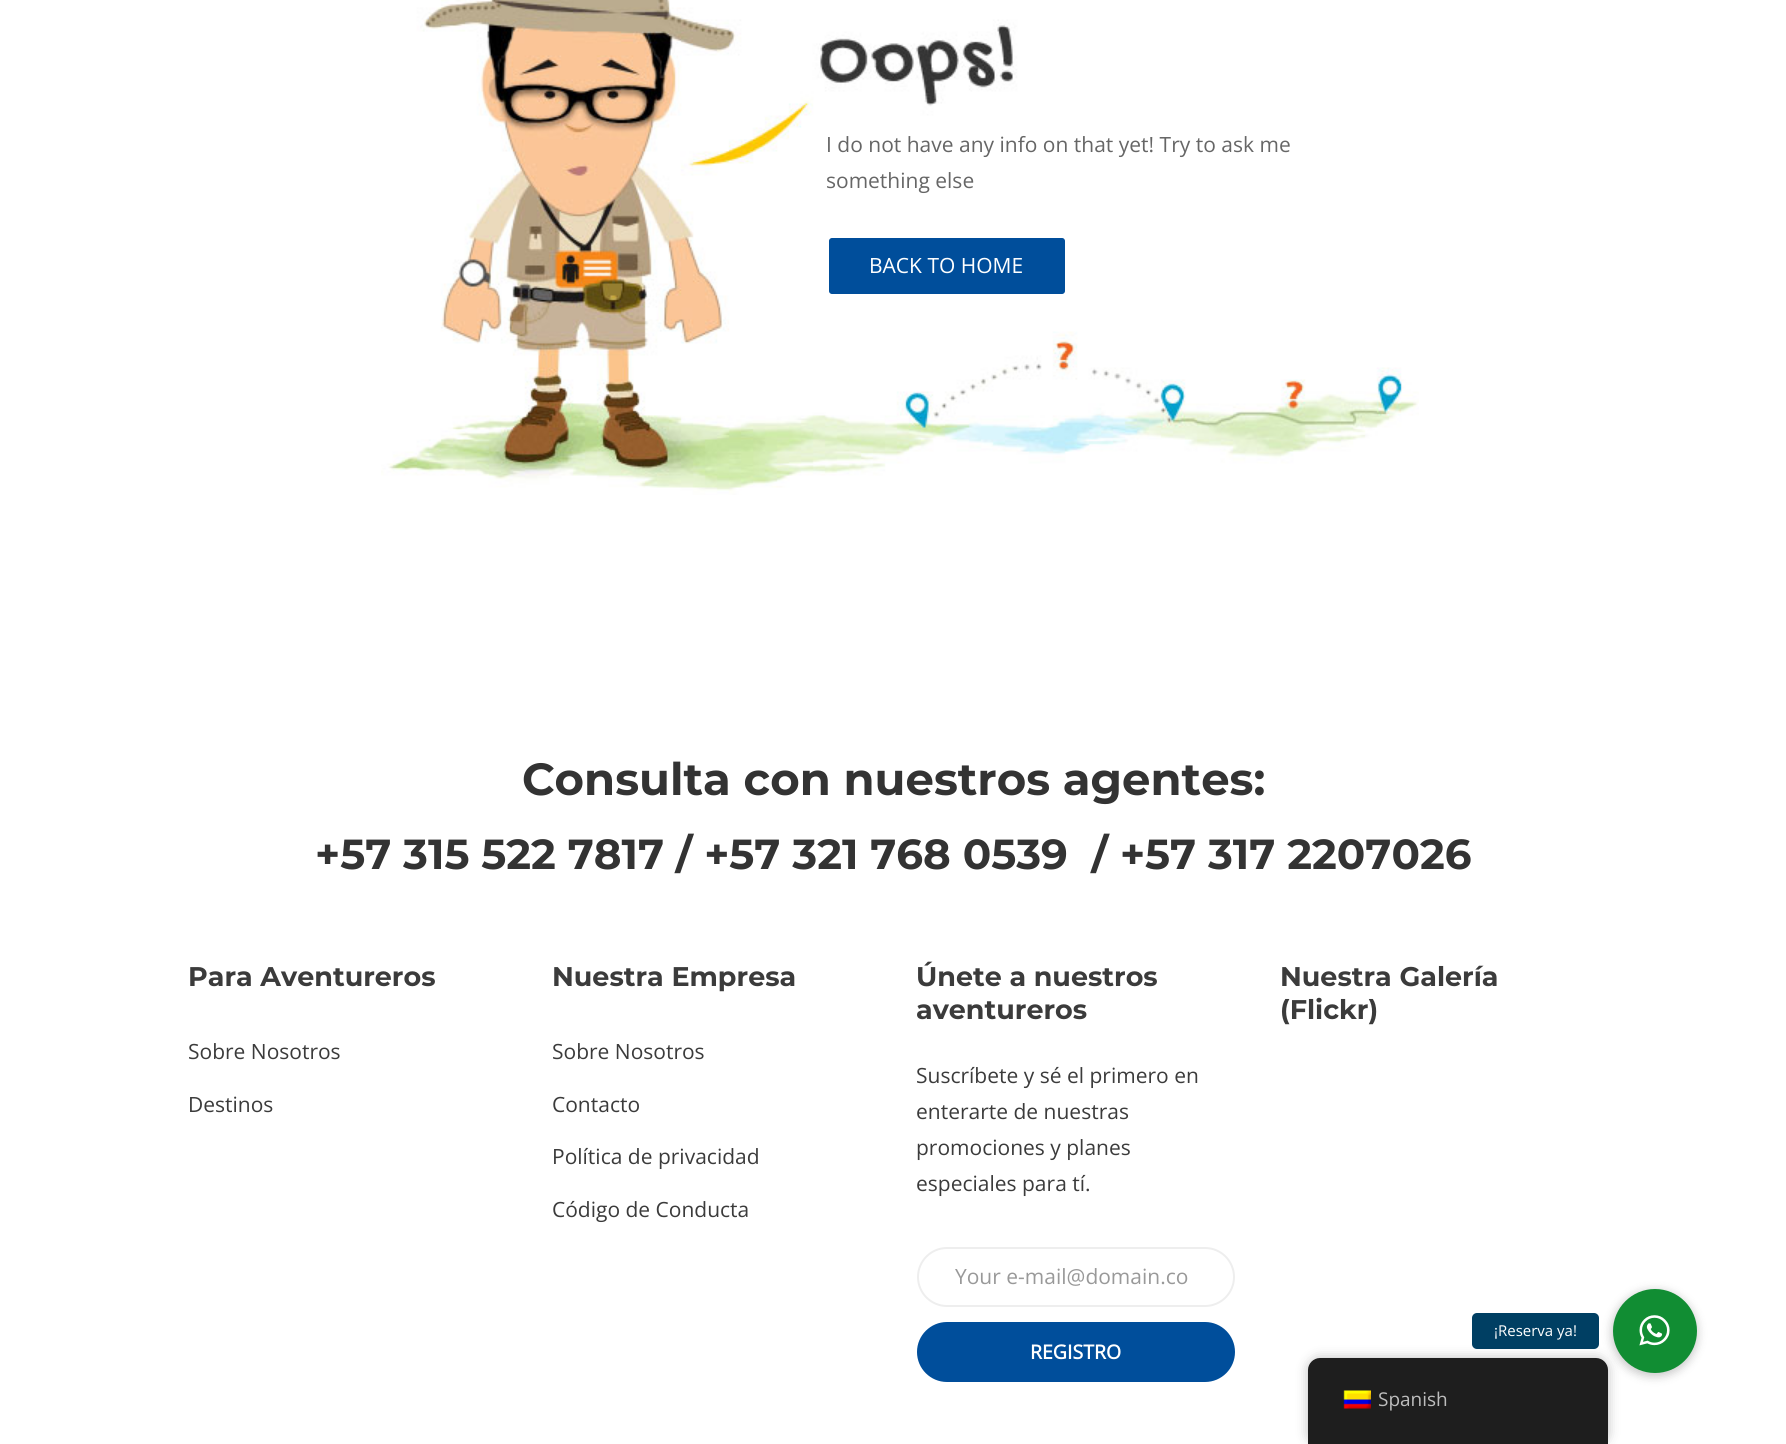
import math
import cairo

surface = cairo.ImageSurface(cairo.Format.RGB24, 1786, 1444)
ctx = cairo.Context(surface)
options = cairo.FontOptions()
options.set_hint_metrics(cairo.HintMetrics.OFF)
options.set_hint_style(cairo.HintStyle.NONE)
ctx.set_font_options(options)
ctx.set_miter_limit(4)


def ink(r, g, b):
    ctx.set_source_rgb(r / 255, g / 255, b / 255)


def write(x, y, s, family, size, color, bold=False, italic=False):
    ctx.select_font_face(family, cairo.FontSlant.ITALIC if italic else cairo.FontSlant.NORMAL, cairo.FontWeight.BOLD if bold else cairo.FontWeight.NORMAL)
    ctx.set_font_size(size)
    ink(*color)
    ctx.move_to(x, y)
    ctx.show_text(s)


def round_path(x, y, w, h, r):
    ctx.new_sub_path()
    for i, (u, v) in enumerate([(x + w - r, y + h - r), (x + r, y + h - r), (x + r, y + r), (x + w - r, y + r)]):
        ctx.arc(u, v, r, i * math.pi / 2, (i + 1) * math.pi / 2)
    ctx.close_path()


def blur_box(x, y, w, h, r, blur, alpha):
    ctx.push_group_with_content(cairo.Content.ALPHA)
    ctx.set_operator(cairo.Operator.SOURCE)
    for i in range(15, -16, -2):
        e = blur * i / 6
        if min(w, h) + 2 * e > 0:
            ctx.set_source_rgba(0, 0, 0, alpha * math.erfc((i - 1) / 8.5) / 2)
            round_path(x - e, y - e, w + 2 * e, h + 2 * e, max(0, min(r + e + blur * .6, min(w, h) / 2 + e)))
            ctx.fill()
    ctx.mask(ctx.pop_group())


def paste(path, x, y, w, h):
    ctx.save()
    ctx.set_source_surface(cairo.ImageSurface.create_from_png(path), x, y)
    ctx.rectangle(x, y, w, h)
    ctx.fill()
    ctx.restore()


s1 = dict(family="Open Sans", size=21, color=(102, 102, 102))
s2 = dict(family="Open Sans", size=21, color=(255, 255, 255))
s3 = dict(family="Montserrat", size=45, color=(51, 51, 51), bold=True)
s4 = dict(family="Montserrat", size=42, color=(51, 51, 51), bold=True)
s5 = dict(family="Montserrat", size=27, color=(59, 59, 59), bold=True)
s6 = dict(family="Open Sans", size=21, color=(59, 59, 59))
s7 = dict(family="Open Sans", size=21, color=(153, 153, 153))
s8 = dict(family="Open Sans", size=19.5, color=(255, 255, 255), bold=True)
s9 = dict(family="Open Sans", size=15, color=(255, 255, 255))
s10 = dict(family="Open Sans", size=19, color=(189, 189, 189))

ink(255, 255, 255)
ctx.paint()
paste("pic1.png", 381, 0, 1038, 495)
write(826, 152, "I do not have any info on that yet! Try to ask me", **s1)
write(826, 188, "something else", **s1)
ink(0, 78, 155)
round_path(828, 237, 238, 58, 4)
ctx.fill_preserve()
ink(255, 255, 255)
ctx.stroke()
write(869, 273, "BACK TO HOME", **s2)
write(522, 795, "Consulta con nuestros agentes:", **s3)
write(315, 869, "+57 315 522 7817 / +57 321 768 0539  / +57 317 2207026", **s4)
write(188, 986, "Para Aventureros", **s5)
write(188, 1059, "Sobre Nosotros", **s6)
write(188, 1112, "Destinos", **s6)
write(552, 986, "Nuestra Empresa", **s5)
write(552, 1059, "Sobre Nosotros", **s6)
write(552, 1112, "Contacto", **s6)
write(552, 1164, "Política de privacidad", **s6)
write(552, 1217, "Código de Conducta", **s6)
write(916, 986, "Únete a nuestros", **s5)
write(916, 1019, "aventureros", **s5)
write(916, 1083, "Suscríbete y sé el primero en", **s6)
write(916, 1119, "enterarte de nuestras", **s6)
write(916, 1155, "promociones y planes", **s6)
write(916, 1191, "especiales para tí.", **s6)
round_path(918, 1248, 316, 58, 29)
ink(238, 238, 238)
ctx.stroke()
write(955, 1284, "Your e-mail@domain.co", **s7)
ink(0, 78, 155)
round_path(918, 1323, 316, 58, 29)
ctx.fill_preserve()
ctx.stroke()
write(1030, 1359, "REGISTRO", **s8)
write(1280, 986, "Nuestra Galería", **s5)
write(1280, 1019, "(Flickr)", **s5)
ink(0, 0, 0)
blur_box(1611, 1290, 87, 87, 43.5, 4.5, 0.2)
ink(17, 141, 51)
ctx.arc(1655, 1331, 42, 0, 2 * math.pi)
ctx.fill()
ink(0, 63, 99)
round_path(1472, 1313, 127, 36, 5)
ctx.fill()
write(1494, 1336, "¡Reserva ya!", **s9)
paste("pic2.png", 1639, 1315, 31, 31)
ink(0, 0, 0)
blur_box(1308, 1358, 300, 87, 12, 6, 0.25)
ink(30, 30, 30)
ctx.new_path()
ctx.move_to(1320, 1358)
ctx.line_to(1596, 1358)
ctx.curve_to(1602.5, 1358, 1608, 1363.5, 1608, 1370)
ctx.line_to(1608, 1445)
ctx.line_to(1308, 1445)
ctx.line_to(1308, 1370)
ctx.curve_to(1308, 1363.5, 1313.5, 1358, 1320, 1358)
ctx.close_path()
ctx.fill()
paste("pic3.png", 1343, 1390, 28, 19)
write(1378, 1406, "Spanish", **s10)
surface.write_to_png("screenshot.png")
